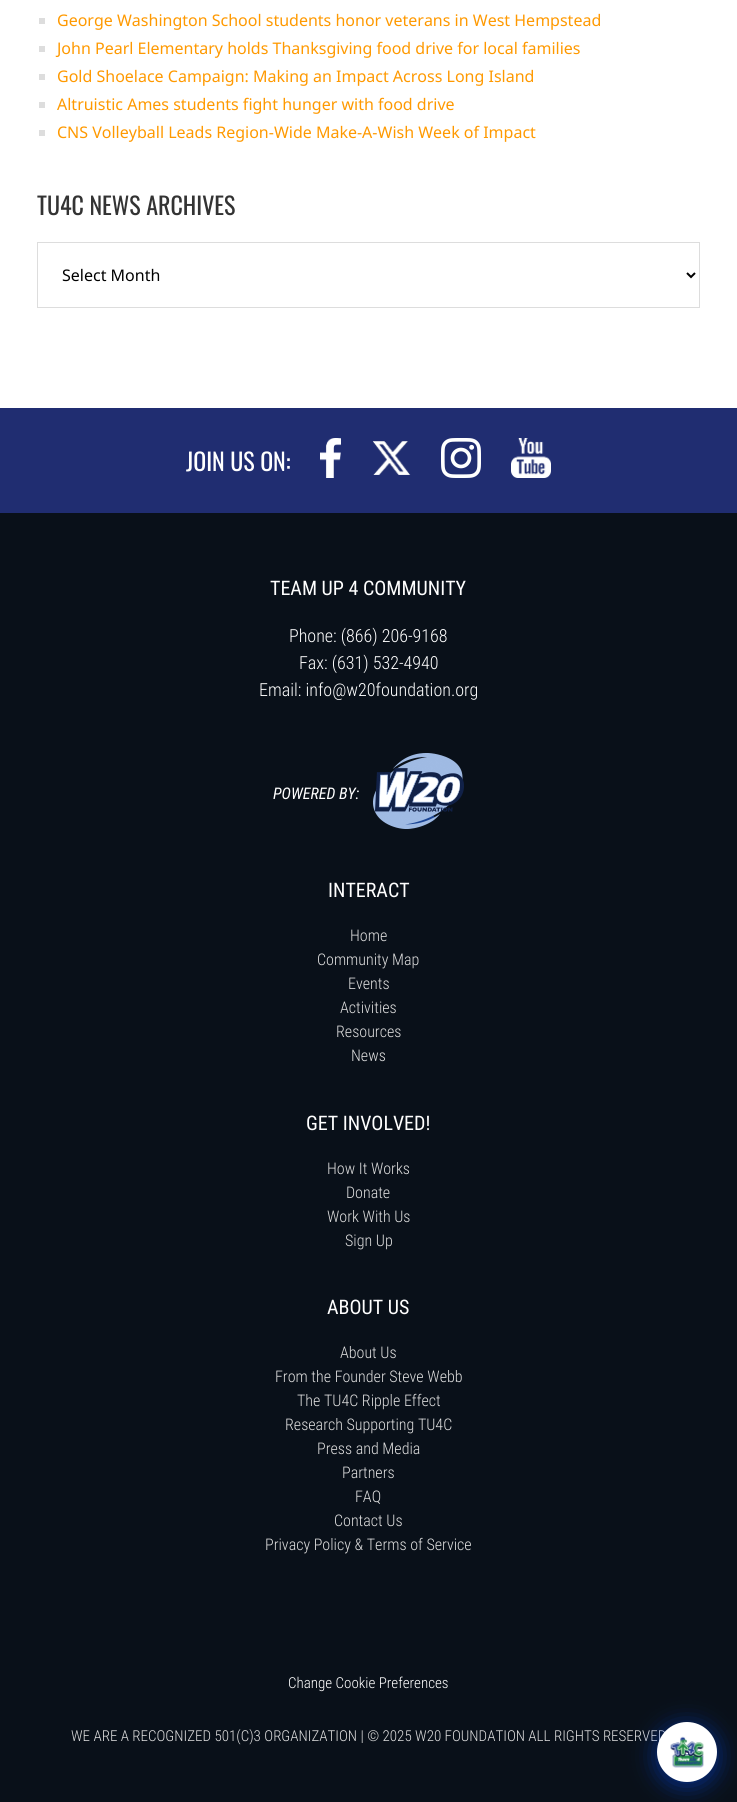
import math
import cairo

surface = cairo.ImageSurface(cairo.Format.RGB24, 737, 1802)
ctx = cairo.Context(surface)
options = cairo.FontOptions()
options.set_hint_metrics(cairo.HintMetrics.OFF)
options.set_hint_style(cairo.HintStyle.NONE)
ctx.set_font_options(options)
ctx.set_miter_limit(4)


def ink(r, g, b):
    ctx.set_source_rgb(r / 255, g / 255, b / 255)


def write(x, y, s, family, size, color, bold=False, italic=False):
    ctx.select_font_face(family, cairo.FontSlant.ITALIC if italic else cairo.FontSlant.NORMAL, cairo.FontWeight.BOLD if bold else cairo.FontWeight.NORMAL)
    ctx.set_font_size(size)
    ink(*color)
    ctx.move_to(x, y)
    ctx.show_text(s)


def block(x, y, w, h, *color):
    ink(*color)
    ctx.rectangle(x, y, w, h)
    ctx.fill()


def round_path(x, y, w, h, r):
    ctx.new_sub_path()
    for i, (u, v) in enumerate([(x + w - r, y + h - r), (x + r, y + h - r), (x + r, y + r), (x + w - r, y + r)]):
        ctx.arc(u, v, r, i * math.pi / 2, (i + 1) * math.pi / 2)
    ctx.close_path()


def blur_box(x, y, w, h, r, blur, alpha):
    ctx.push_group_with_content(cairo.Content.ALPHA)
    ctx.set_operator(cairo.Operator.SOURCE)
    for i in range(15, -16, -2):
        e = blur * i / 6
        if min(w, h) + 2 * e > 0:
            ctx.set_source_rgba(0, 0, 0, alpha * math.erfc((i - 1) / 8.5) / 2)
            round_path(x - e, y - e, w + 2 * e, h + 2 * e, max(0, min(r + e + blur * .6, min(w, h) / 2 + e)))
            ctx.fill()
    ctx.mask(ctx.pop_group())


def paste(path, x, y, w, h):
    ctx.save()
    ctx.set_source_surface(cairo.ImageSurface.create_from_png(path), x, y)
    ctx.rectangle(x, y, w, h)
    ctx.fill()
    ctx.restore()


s1 = dict(family="Noto Sans", size=16, color=(255, 153, 0))
s2 = dict(family="Oswald", size=24, color=(51, 51, 51))
s3 = dict(family="Noto Sans", size=16, color=(0, 0, 0))
s4 = dict(family="Oswald", size=24, color=(255, 255, 255))
s5 = dict(family="Roboto Condensed", size=20, color=(255, 255, 255))
s6 = dict(family="Roboto Condensed Light", size=18, color=(255, 255, 255))
s7 = dict(family="Roboto Condensed", size=16, color=(255, 255, 255), italic=True)
s8 = dict(family="Roboto Condensed Light", size=16, color=(221, 221, 221))
s9 = dict(family="Roboto Condensed Light", size=15, color=(255, 255, 255))
s10 = dict(family="Roboto Condensed Light", size=15, color=(221, 221, 221))

ink(255, 255, 255)
ctx.paint()
block(39, 18, 6, 6, 221, 221, 221)
write(57, 26, "George Washington School students honor veterans in West Hempstead", **s1)
block(39, 46, 6, 6, 221, 221, 221)
write(57, 54, "John Pearl Elementary holds Thanksgiving food drive for local families", **s1)
block(39, 74, 6, 6, 221, 221, 221)
write(57, 82, "Gold Shoelace Campaign: Making an Impact Across Long Island", **s1)
block(39, 102, 6, 6, 221, 221, 221)
write(57, 110, "Altruistic Ames students fight hunger with food drive", **s1)
block(39, 130, 6, 6, 221, 221, 221)
write(57, 138, "CNS Volleyball Leads Region-Wide Make-A-Wish Week of Impact", **s1)
write(37, 215, "TU4C NEWS ARCHIVES", **s2)
ctx.rectangle(37.5, 242.5, 662, 65)
ink(221, 221, 221)
ctx.set_line_width(1)
ctx.stroke()
ctx.new_path()
ctx.move_to(687, 273)
ctx.line_to(691, 277)
ctx.line_to(695, 273)
ink(0, 0, 0)
ctx.set_line_width(2)
ctx.stroke()
write(62, 281, "Select Month", **s3)
block(0, 408, 737, 105, 32, 45, 113)
write(186, 471, "JOIN US ON:", **s4)
paste("pic1.png", 320, 438, 21, 40)
paste("pic2.png", 372, 441, 39, 34)
paste("pic3.png", 441, 438, 40, 40)
paste("pic4.png", 511, 438, 40, 40)
block(0, 513, 737, 1289, 9, 16, 25)
write(270, 595, "TEAM UP 4 COMMUNITY", **s5)
write(289, 642, "Phone: (866) 206-9168", **s6)
write(299, 669, "Fax: (631) 532-4940", **s6)
write(259, 696, "Email: info@w20foundation.org", **s6)
write(273, 799, "POWERED BY:", **s7)
paste("pic5.png", 373, 753, 91, 76)
write(328, 897, "INTERACT", **s5)
write(350, 941, "Home", **s8)
write(317, 965, "Community Map", **s8)
write(348, 989, "Events", **s8)
write(340, 1013, "Activities", **s8)
write(336, 1037, "Resources", **s8)
write(351, 1061, "News", **s8)
write(306, 1130, "GET INVOLVED!", **s5)
write(327, 1174, "How It Works", **s8)
write(346, 1198, "Donate", **s8)
write(327, 1222, "Work With Us", **s8)
write(345, 1246, "Sign Up", **s8)
write(327, 1314, "ABOUT US", **s5)
write(340, 1358, "About Us", **s8)
write(275, 1382, "From the Founder Steve Webb", **s8)
write(297, 1406, "The TU4C Ripple Effect", **s8)
write(285, 1430, "Research Supporting TU4C", **s8)
write(317, 1454, "Press and Media", **s8)
write(342, 1478, "Partners", **s8)
write(355, 1502, "FAQ", **s8)
write(334, 1526, "Contact Us", **s8)
write(265, 1550, "Privacy Policy & Terms of Service", **s8)
write(288, 1688, "Change Cookie Preferences", **s9)
write(71, 1741, "WE ARE A RECOGNIZED 501(C)3 ORGANIZATION | © 2025 W20 FOUNDATION ALL RIGHTS RESERVED", **s10)
ink(0, 77, 255)
blur_box(657, 1726, 60, 60, 30, 12, 0.5)
ink(255, 255, 255)
ctx.arc(687, 1752, 30, 0, 2 * math.pi)
ctx.fill()
paste("pic6.png", 670, 1736, 34, 32)
surface.write_to_png("screenshot.png")
